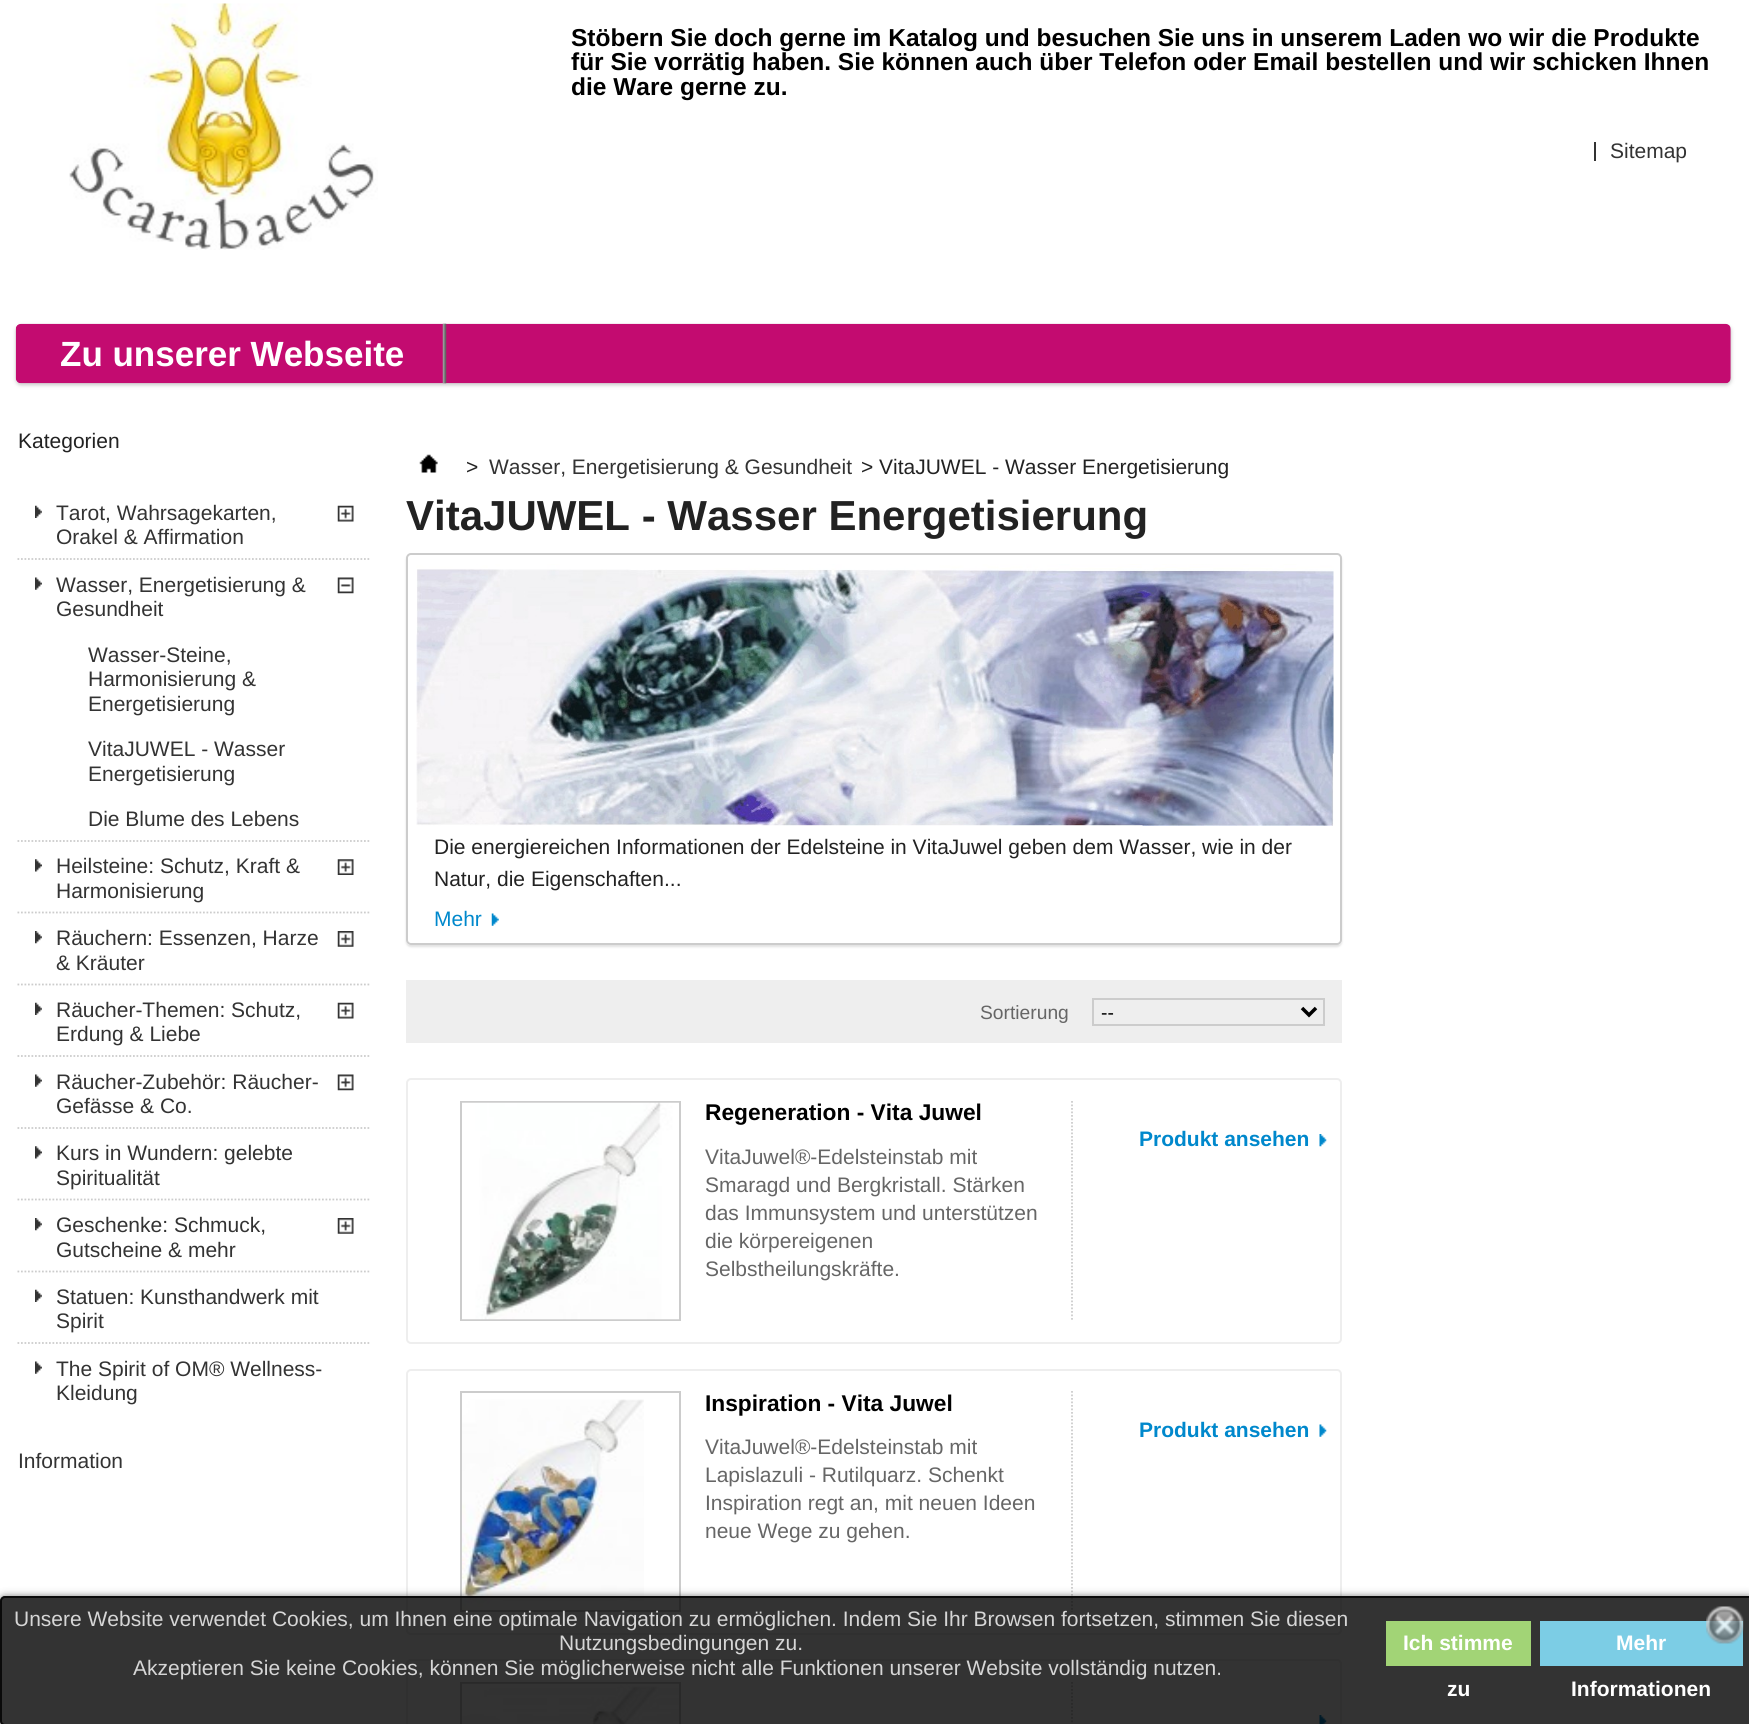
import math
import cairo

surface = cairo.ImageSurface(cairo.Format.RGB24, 1749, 1724)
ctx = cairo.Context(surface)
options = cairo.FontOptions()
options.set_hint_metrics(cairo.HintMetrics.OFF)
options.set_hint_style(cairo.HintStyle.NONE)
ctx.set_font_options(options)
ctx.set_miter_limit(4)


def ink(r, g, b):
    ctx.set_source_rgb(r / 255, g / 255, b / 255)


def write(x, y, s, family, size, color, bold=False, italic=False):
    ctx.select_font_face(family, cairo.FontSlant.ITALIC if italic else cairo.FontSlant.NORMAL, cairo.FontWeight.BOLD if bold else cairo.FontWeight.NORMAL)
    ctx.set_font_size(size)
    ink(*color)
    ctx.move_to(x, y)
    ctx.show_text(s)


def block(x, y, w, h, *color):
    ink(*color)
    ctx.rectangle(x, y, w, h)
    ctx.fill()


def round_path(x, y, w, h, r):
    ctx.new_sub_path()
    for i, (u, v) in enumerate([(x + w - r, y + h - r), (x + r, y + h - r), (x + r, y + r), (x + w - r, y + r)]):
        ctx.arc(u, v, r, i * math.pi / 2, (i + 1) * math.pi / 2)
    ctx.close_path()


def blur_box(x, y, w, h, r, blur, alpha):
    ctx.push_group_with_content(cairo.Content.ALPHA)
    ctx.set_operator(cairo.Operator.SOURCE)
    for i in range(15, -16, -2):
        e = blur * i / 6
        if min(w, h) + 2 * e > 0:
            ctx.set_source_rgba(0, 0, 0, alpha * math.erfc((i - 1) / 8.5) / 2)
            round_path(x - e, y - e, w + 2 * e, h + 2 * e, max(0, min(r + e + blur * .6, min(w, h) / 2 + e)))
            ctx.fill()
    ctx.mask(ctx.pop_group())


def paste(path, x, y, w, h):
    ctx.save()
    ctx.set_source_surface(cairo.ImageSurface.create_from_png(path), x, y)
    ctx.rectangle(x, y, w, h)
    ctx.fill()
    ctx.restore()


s1 = dict(family="Liberation Sans", size=24.5, color=(0, 0, 0), bold=True)
s2 = dict(family="Liberation Sans", size=21, color=(51, 51, 51))
s3 = dict(family="Liberation Sans", size=35, color=(255, 255, 255), bold=True)
s4 = dict(family="Liberation Sans", size=21, color=(214, 214, 214))
s5 = dict(family="Liberation Sans", size=21, color=(255, 255, 255), bold=True)
s6 = dict(family="Liberation Sans", size=21, color=(34, 34, 34))
s7 = dict(family="Liberation Sans", size=42, color=(34, 34, 34), bold=True)
s8 = dict(family="Liberation Sans", size=21, color=(0, 136, 204))
s9 = dict(family="Liberation Sans", size=19.25, color=(102, 102, 102))
s10 = dict(family="Liberation Sans", size=19.25, color=(0, 0, 0))
s11 = dict(family="Liberation Sans", size=22.75, color=(0, 0, 0), bold=True)
s12 = dict(family="Liberation Sans", size=21, color=(102, 102, 102))
s13 = dict(family="Liberation Sans", size=21, color=(0, 136, 204), bold=True)

ink(255, 255, 255)
ctx.paint()
paste("pic1.png", 69, 3, 309, 247)
write(571, 46, "Stöbern Sie doch gerne im Katalog und besuchen Sie uns in unserem Laden wo wir die Produkte", **s1)
write(571, 70, "für Sie vorrätig haben. Sie können auch über Telefon oder Email bestellen und wir schicken Ihnen", **s1)
write(571, 95, "die Ware gerne zu.", **s1)
block(1594, 142, 2, 19, 51, 51, 51)
write(1610, 158, "Sitemap", **s2)
ink(198, 198, 198)
blur_box(16, 326, 1715, 59, 5, 2, 1)
paste("pic2.png", 15, 323, 1716, 61)
paste("pic3.png", 442, 323, 5, 61)
write(60, 366, "Zu unserer Webseite", **s3)
round_path(407, 1370, 934, 264, 4)
ink(238, 238, 238)
ctx.stroke()
ctx.new_path()
ctx.move_to(1072, 1391)
ctx.line_to(1072, 1612)
ink(204, 204, 204)
ctx.set_line_width(1.8)
ctx.set_dash([1.75, 1.75])
ctx.stroke()
ctx.rectangle(461, 1392, 219, 219)
ctx.set_line_width(2)
ctx.set_dash([])
ctx.stroke()
paste("pic19.png", 462, 1399, 182, 211)
round_path(407, 1660, 934, 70, 4)
ink(238, 238, 238)
ctx.stroke()
ctx.new_path()
ctx.move_to(1072, 1682)
ctx.line_to(1072, 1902)
ink(204, 204, 204)
ctx.set_line_width(1.8)
ctx.set_dash([1.75, 1.75])
ctx.stroke()
ctx.rectangle(461, 1683, 219, 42)
ctx.set_line_width(2)
ctx.set_dash([])
ctx.stroke()
paste("pic21.png", 462, 1683, 217, 41)
paste("pic22.png", 1319, 1715, 8, 9)
ctx.save()
ctx.set_fill_rule(cairo.FillRule.EVEN_ODD)
ctx.new_path()
ctx.move_to(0, 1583)
ctx.line_to(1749, 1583)
ctx.line_to(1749, 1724)
ctx.line_to(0, 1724)
ctx.close_path()
ctx.move_to(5, 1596)
ctx.line_to(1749, 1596)
ctx.curve_to(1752, 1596, 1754, 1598, 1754, 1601)
ctx.line_to(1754, 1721)
ctx.curve_to(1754, 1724, 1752, 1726, 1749, 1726)
ctx.line_to(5, 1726)
ctx.curve_to(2, 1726, 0, 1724, 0, 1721)
ctx.line_to(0, 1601)
ctx.curve_to(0, 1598, 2, 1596, 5, 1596)
ctx.close_path()
ctx.clip()
ink(0, 0, 0)
blur_box(0, 1598, 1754, 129, 5, 4.5, 0.8)
ctx.restore()
ctx.set_source_rgba(0, 0, 0, 0.8)
round_path(0, 1596, 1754, 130, 5)
ctx.fill()
round_path(1, 1597, 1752, 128, 4)
ctx.stroke()
write(14, 1626, "Unsere Website verwendet Cookies, um Ihnen eine optimale Navigation zu ermöglichen. Indem Sie Ihr Browsen fortsetzen, stimmen Sie diesen", **s4)
write(559, 1650, "Nutzungsbedingungen zu.", **s4)
write(133, 1675, "Akzeptieren Sie keine Cookies, können Sie möglicherweise nicht alle Funktionen unserer Website vollständig nutzen.", **s4)
block(1386, 1621, 145, 45, 162, 212, 118)
write(1403, 1650, "Ich stimme", **s5)
write(1447, 1696, "zu", **s5)
block(1540, 1621, 203, 45, 124, 205, 229)
write(1616, 1650, "Mehr", **s5)
write(1571, 1696, "Informationen", **s5)
paste("pic4.png", 1706, 1606, 38, 38)
write(18, 448, "Kategorien", **s6)
ctx.new_path()
ctx.move_to(17.5, 559)
ctx.line_to(371, 559)
ink(204, 204, 204)
ctx.set_line_width(1.8)
ctx.set_dash([1.75, 1.75])
ctx.stroke()
paste("pic5.png", 35, 505, 7, 13)
write(56, 520, "Tarot, Wahrsagekarten,", **s2)
write(56, 544, "Orakel & Affirmation", **s2)
paste("pic6.png", 337, 505, 17, 17)
ctx.new_path()
ctx.move_to(17.5, 841)
ctx.line_to(371, 841)
ink(204, 204, 204)
ctx.stroke()
paste("pic7.png", 35, 577, 7, 13)
write(56, 592, "Wasser, Energetisierung &", **s2)
write(56, 616, "Gesundheit", **s2)
paste("pic8.png", 337, 577, 17, 17)
write(88, 662, "Wasser-Steine,", **s2)
write(88, 686, "Harmonisierung &", **s2)
write(88, 711, "Energetisierung", **s2)
write(88, 756, "VitaJUWEL - Wasser", **s2)
write(88, 781, "Energetisierung", **s2)
write(88, 826, "Die Blume des Lebens", **s2)
ctx.new_path()
ctx.move_to(17.5, 912.5)
ctx.line_to(371, 912.5)
ink(204, 204, 204)
ctx.stroke()
paste("pic9.png", 35, 859, 7, 13)
write(56, 873, "Heilsteine: Schutz, Kraft &", **s2)
write(56, 898, "Harmonisierung", **s2)
paste("pic10.png", 337, 859, 17, 16)
ctx.new_path()
ctx.move_to(17.5, 984.5)
ctx.line_to(371, 984.5)
ink(204, 204, 204)
ctx.stroke()
paste("pic11.png", 35, 931, 7, 13)
write(56, 945, "Räuchern: Essenzen, Harze", **s2)
write(56, 970, "& Kräuter", **s2)
paste("pic12.png", 337, 931, 17, 16)
ctx.new_path()
ctx.move_to(17.5, 1056)
ctx.line_to(371, 1056)
ink(204, 204, 204)
ctx.stroke()
paste("pic5.png", 35, 1002, 7, 13)
write(56, 1017, "Räucher-Themen: Schutz,", **s2)
write(56, 1041, "Erdung & Liebe", **s2)
paste("pic6.png", 337, 1002, 17, 17)
ctx.new_path()
ctx.move_to(17.5, 1128)
ctx.line_to(371, 1128)
ink(204, 204, 204)
ctx.stroke()
paste("pic7.png", 35, 1074, 7, 13)
write(56, 1089, "Räucher-Zubehör: Räucher-", **s2)
write(56, 1113, "Gefässe & Co.", **s2)
paste("pic13.png", 337, 1074, 17, 17)
ctx.new_path()
ctx.move_to(17.5, 1199.5)
ctx.line_to(371, 1199.5)
ink(204, 204, 204)
ctx.stroke()
paste("pic9.png", 35, 1146, 7, 13)
write(56, 1160, "Kurs in Wundern: gelebte", **s2)
write(56, 1185, "Spiritualität", **s2)
ctx.new_path()
ctx.move_to(17.5, 1271.5)
ctx.line_to(371, 1271.5)
ink(204, 204, 204)
ctx.stroke()
paste("pic11.png", 35, 1218, 7, 13)
write(56, 1232, "Geschenke: Schmuck,", **s2)
write(56, 1257, "Gutscheine & mehr", **s2)
paste("pic12.png", 337, 1218, 17, 16)
ctx.new_path()
ctx.move_to(17.5, 1343)
ctx.line_to(371, 1343)
ink(204, 204, 204)
ctx.stroke()
paste("pic5.png", 35, 1289, 7, 13)
write(56, 1304, "Statuen: Kunsthandwerk mit", **s2)
write(56, 1328, "Spirit", **s2)
paste("pic7.png", 35, 1361, 7, 13)
write(56, 1376, "The Spirit of OM® Wellness-", **s2)
write(56, 1400, "Kleidung", **s2)
write(18, 1468, "Information", **s2)
paste("pic14.png", 419, 454, 19, 19)
write(466, 474, ">", **s6)
write(489, 474, "Wasser, Energetisierung & Gesundheit", **s2)
write(861, 474, ">", **s6)
write(879, 474, "VitaJUWEL - Wasser Energetisierung", **s6)
write(406, 530, "VitaJUWEL - Wasser Energetisierung", **s7)
ctx.save()
ctx.set_fill_rule(cairo.FillRule.EVEN_ODD)
ctx.new_path()
ctx.move_to(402, 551)
ctx.line_to(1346, 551)
ctx.line_to(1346, 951)
ctx.line_to(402, 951)
ctx.close_path()
ctx.move_to(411, 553)
ctx.line_to(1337, 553)
ctx.curve_to(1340, 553, 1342, 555, 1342, 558)
ctx.line_to(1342, 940)
ctx.curve_to(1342, 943, 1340, 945, 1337, 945)
ctx.line_to(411, 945)
ctx.curve_to(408, 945, 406, 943, 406, 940)
ctx.line_to(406, 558)
ctx.curve_to(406, 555, 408, 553, 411, 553)
ctx.close_path()
ctx.clip()
ink(226, 226, 226)
blur_box(406, 555, 936, 392, 5, 1, 1)
ctx.restore()
round_path(407, 554, 934, 390, 4)
ink(204, 204, 204)
ctx.set_line_width(2)
ctx.set_dash([])
ctx.stroke()
paste("pic15.png", 416, 564, 918, 262)
write(434, 854, "Die energiereichen Informationen der Edelsteine in VitaJuwel geben dem Wasser, wie in der", **s6)
write(434, 886, "Natur, die Eigenschaften...", **s6)
write(434, 926, "Mehr", **s8)
paste("pic16.png", 491, 913, 8, 13)
block(406, 980, 936, 63, 238, 238, 238)
write(980, 1019, "Sortierung", **s9)
ctx.rectangle(1093, 999, 231, 26)
ink(204, 204, 204)
ctx.stroke()
ctx.new_path()
ctx.move_to(1302, 1008)
ctx.line_to(1309, 1015)
ctx.line_to(1316, 1008)
ink(0, 0, 0)
ctx.set_line_width(3.5)
ctx.stroke()
write(1101, 1019, "--", **s10)
round_path(407, 1079, 934, 264, 4)
ink(238, 238, 238)
ctx.set_line_width(2)
ctx.stroke()
ctx.new_path()
ctx.move_to(1072, 1101)
ctx.line_to(1072, 1321)
ink(204, 204, 204)
ctx.set_line_width(1.8)
ctx.set_dash([1.75, 1.75])
ctx.stroke()
ctx.rectangle(461, 1102, 219, 218)
ctx.set_line_width(2)
ctx.set_dash([])
ctx.stroke()
paste("pic17.png", 462, 1102, 217, 218)
write(705, 1120, "Regeneration - Vita Juwel", **s11)
write(705, 1164, "VitaJuwel®-Edelsteinstab mit", **s12)
write(705, 1192, "Smaragd und Bergkristall. Stärken", **s12)
write(705, 1220, "das Immunsystem und unterstützen", **s12)
write(705, 1248, "die körpereigenen", **s12)
write(705, 1276, "Selbstheilungskräfte.", **s12)
paste("pic18.png", 1319, 1134, 8, 13)
write(1139, 1146, "Produkt ansehen", **s13)
write(705, 1411, "Inspiration - Vita Juwel", **s11)
write(705, 1454, "VitaJuwel®-Edelsteinstab mit", **s12)
write(705, 1482, "Lapislazuli - Rutilquarz. Schenkt", **s12)
write(705, 1510, "Inspiration regt an, mit neuen Ideen", **s12)
write(705, 1538, "neue Wege zu gehen.", **s12)
paste("pic20.png", 1319, 1424, 8, 13)
write(1139, 1437, "Produkt ansehen", **s13)
surface.write_to_png("screenshot.png")
